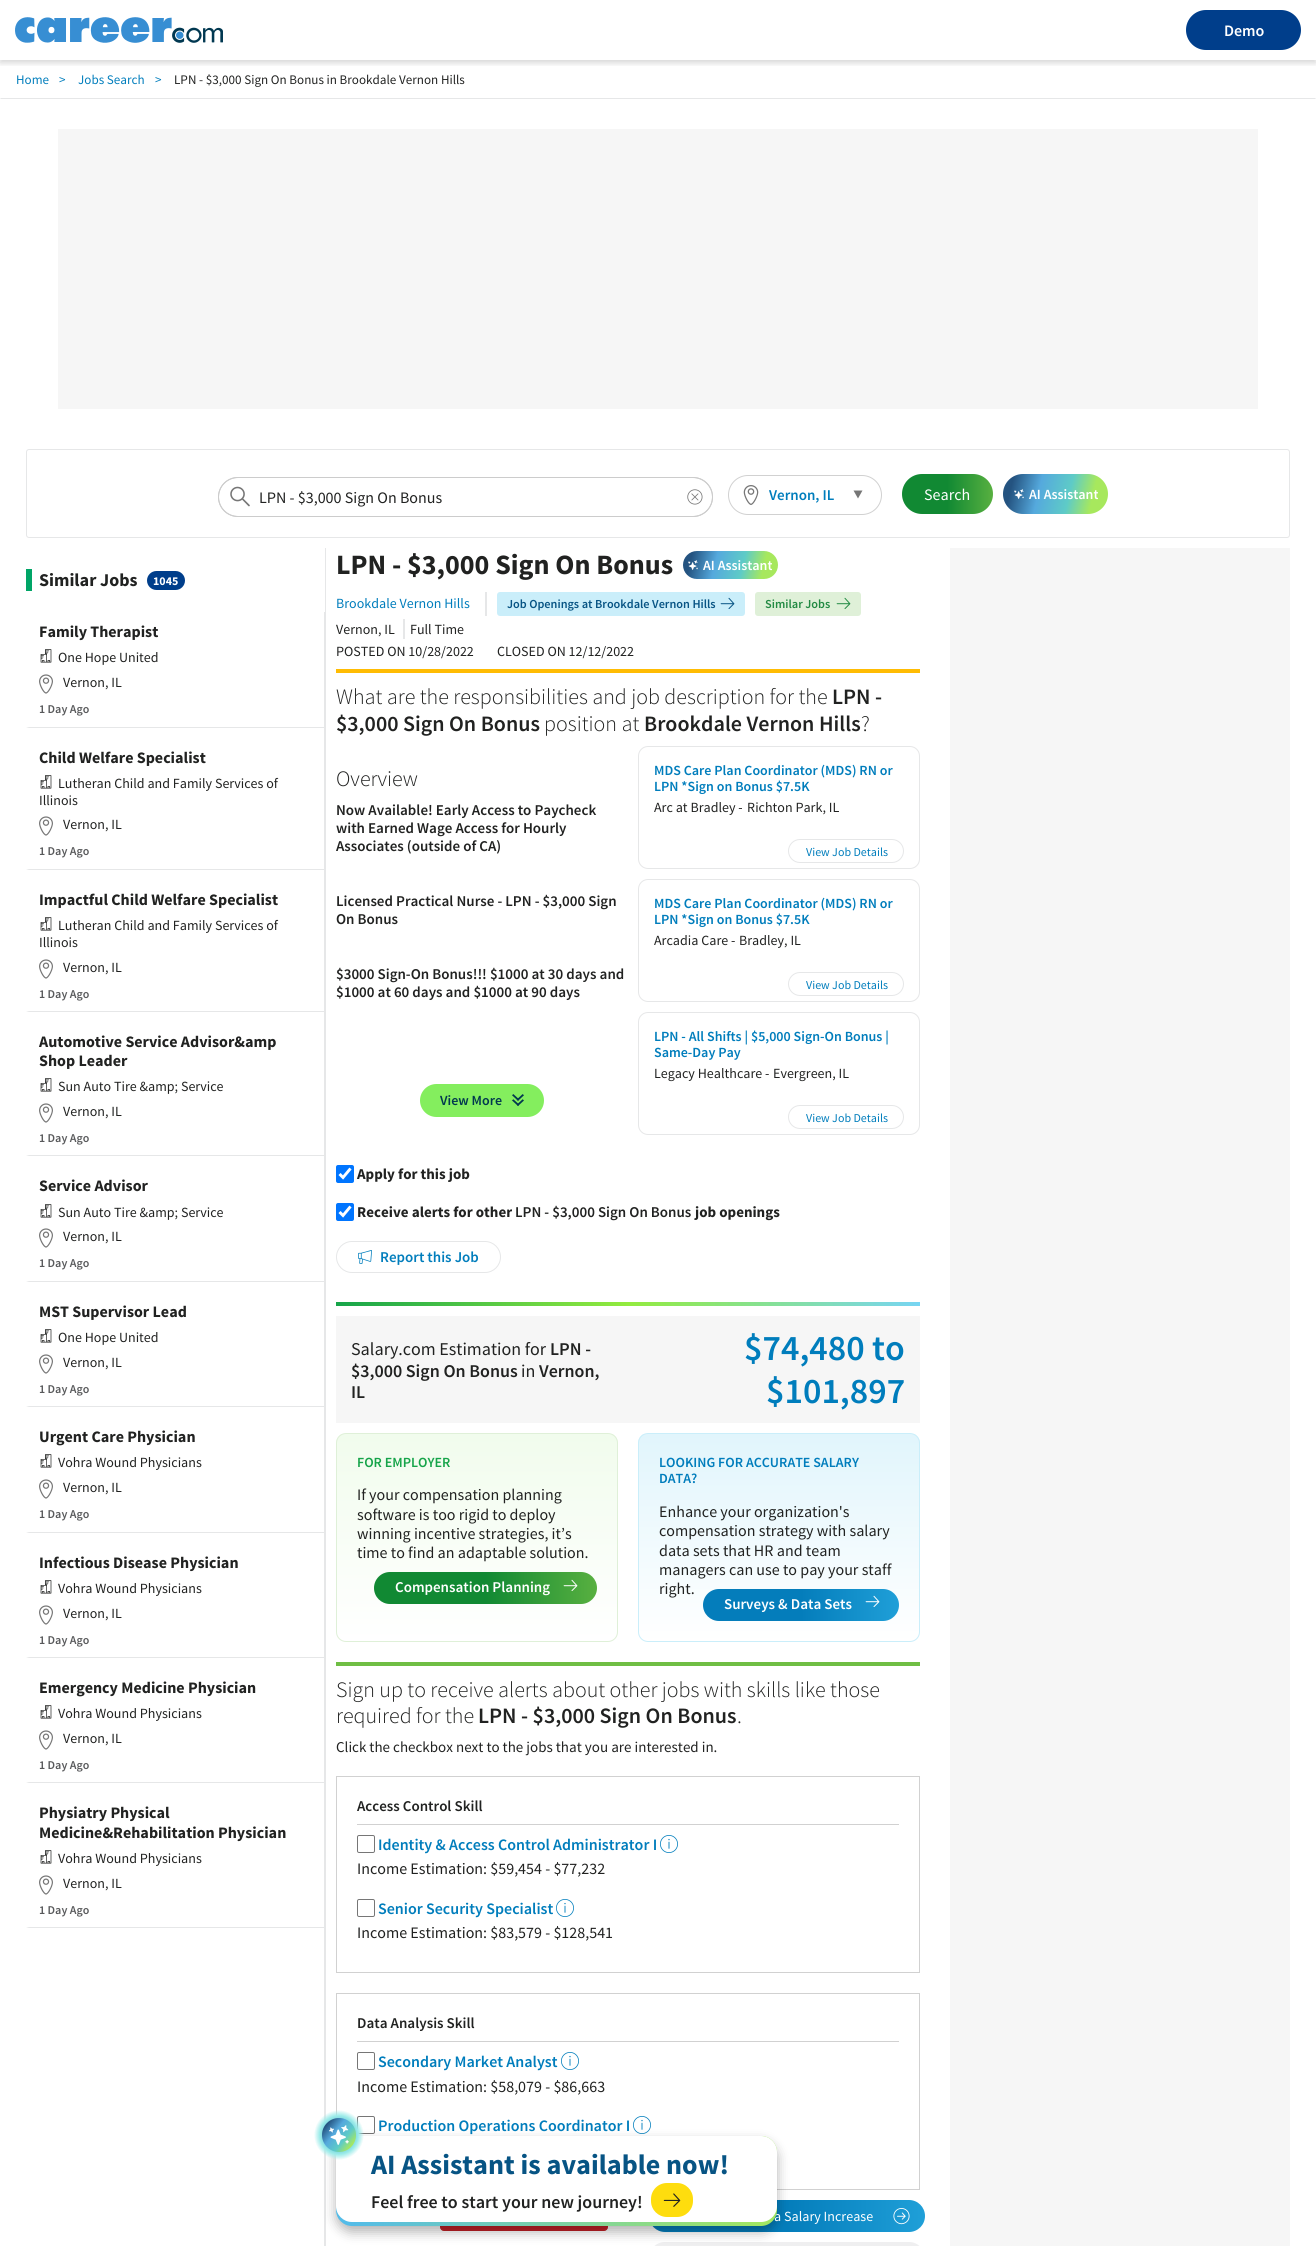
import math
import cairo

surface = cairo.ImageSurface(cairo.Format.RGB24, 1316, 2246)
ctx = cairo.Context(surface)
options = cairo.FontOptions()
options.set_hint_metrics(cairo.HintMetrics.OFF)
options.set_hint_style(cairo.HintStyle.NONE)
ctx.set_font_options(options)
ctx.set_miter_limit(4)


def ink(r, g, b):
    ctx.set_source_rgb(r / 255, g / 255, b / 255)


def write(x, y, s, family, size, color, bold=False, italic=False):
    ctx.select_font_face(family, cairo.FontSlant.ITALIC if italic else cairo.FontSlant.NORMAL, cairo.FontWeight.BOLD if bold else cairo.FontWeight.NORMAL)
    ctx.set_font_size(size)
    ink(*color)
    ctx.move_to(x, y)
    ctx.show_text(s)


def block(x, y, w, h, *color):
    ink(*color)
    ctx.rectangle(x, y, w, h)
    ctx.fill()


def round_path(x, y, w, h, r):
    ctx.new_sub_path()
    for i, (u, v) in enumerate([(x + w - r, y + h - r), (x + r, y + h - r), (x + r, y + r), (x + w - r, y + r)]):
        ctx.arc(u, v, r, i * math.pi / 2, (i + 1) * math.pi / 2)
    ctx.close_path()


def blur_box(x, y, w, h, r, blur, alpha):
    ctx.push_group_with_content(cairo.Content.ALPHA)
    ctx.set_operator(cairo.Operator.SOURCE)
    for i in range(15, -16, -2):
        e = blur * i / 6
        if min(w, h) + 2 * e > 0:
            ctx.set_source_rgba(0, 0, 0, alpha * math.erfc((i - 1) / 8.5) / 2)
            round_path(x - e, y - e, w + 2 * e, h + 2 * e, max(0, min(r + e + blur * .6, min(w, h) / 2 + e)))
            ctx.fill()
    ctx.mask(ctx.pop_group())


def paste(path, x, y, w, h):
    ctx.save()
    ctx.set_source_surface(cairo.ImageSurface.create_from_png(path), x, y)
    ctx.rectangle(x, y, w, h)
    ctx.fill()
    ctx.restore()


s1 = dict(family="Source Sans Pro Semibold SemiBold", size=16, color=(255, 255, 255))
s2 = dict(family="Source Sans Pro", size=13.1, color=(0, 125, 188))
s3 = dict(family="Source Sans Pro", size=13.1, color=(33, 34, 33))
s4 = dict(family="Source Sans Pro", size=16, color=(33, 34, 33))
s5 = dict(family="Source Sans Pro Semibold SemiBold", size=15, color=(0, 125, 188))
s6 = dict(family="Source Sans Pro", size=16, color=(255, 255, 255))
s7 = dict(family="Source Sans Pro Semibold SemiBold", size=14, color=(255, 255, 255))
s8 = dict(family="Source Sans Pro", size=18, color=(33, 34, 33), bold=True)
s9 = dict(family="Source Sans Pro", size=12, color=(255, 255, 255), bold=True)
s10 = dict(family="Source Sans Pro", size=16, color=(33, 34, 33), bold=True)
s11 = dict(family="Source Sans Pro", size=14, color=(33, 34, 33))
s12 = dict(family="Source Sans Pro Semibold SemiBold", size=12, color=(88, 89, 91))
s13 = dict(family="Source Sans Pro", size=28, color=(33, 34, 33), bold=True)
s14 = dict(family="Source Sans Pro", size=14, color=(0, 125, 188))
s15 = dict(family="Source Sans Pro Semibold SemiBold", size=12.25, color=(7, 84, 132))
s16 = dict(family="Source Sans Pro Semibold SemiBold", size=12.25, color=(34, 138, 67))
s17 = dict(family="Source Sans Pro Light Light", size=22, color=(33, 34, 33))
s18 = dict(family="Source Sans Pro Semibold SemiBold", size=22, color=(33, 34, 33))
s19 = dict(family="Source Sans Pro Semibold SemiBold", size=15, color=(33, 34, 33))
s20 = dict(family="Source Sans Pro Semibold SemiBold", size=14, color=(1, 55, 79))
s21 = dict(family="Source Sans Pro Semibold SemiBold", size=14, color=(0, 125, 188))
s22 = dict(family="Source Sans Pro", size=12, color=(0, 125, 188))
s23 = dict(family="Source Sans Pro", size=15, color=(33, 34, 33), bold=True)
s24 = dict(family="Source Sans Pro", size=18, color=(33, 34, 33))
s25 = dict(family="Source Sans Pro Semibold SemiBold", size=18, color=(33, 34, 33))
s26 = dict(family="Source Sans Pro Semibold SemiBold", size=36, color=(0, 125, 188))
s27 = dict(family="Source Sans Pro Semibold SemiBold", size=14, color=(22, 164, 74))
s28 = dict(family="Source Sans Pro Semibold SemiBold", size=15, color=(255, 255, 255))
s29 = dict(family="Source Sans Pro", size=15, color=(33, 34, 33))
s30 = dict(family="Source Sans Pro Semibold SemiBold", size=16, color=(0, 125, 188))
s31 = dict(family="Source Sans Pro", size=14, color=(255, 255, 255))
s32 = dict(family="Source Sans Pro", size=28, color=(7, 84, 132), bold=True)

ink(255, 255, 255)
ctx.paint()
ctx.save()
ctx.rectangle(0, 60, 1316, 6)
ctx.clip()
ink(0, 0, 0)
blur_box(0, 3, 1316, 60, 0, 3, 0.16)
ctx.restore()
paste("pic1.png", 15, 17, 208, 26)
ink(0, 62, 139)
round_path(1186, 10, 115, 40, 20)
ctx.fill()
write(1224, 36, "Demo", **s1)
ink(230, 231, 232)
ctx.new_path()
ctx.move_to(1316, 99)
ctx.line_to(0, 99)
ctx.line_to(1, 98)
ctx.line_to(1315, 98)
ctx.close_path()
ctx.fill()
write(16, 84, "Home", **s2)
write(59, 84, ">", **s2)
write(78, 84, "Jobs Search", **s2)
write(155, 84, ">", **s2)
write(174, 84, "LPN - $3,000 Sign On Bonus in Brookdale Vernon Hills", **s3)
block(58, 129, 1200, 280, 246, 246, 246)
round_path(26.5, 449.5, 1263, 88, 2.5)
ink(230, 231, 232)
ctx.set_line_width(1)
ctx.stroke()
round_path(218.5, 477.5, 494, 39, 19.5)
ink(204, 204, 204)
ctx.stroke()
round_path(218.5, 477.5, 494, 39, 19.5)
ctx.stroke()
paste("pic2.png", 230, 486, 20, 21)
write(259, 503, "LPN - $3,000 Sign On Bonus", **s4)
paste("pic3.png", 687, 489, 16, 16)
round_path(728.5, 475.5, 153, 39, 19.5)
ink(209, 209, 209)
ctx.stroke()
paste("pic4.png", 743, 485, 16, 20)
write(769, 500, "Vernon, IL", **s5)
ink(118, 118, 118)
ctx.new_path()
ctx.move_to(862.5, 490.5)
ctx.line_to(853.5, 490.5)
ctx.line_to(858, 498.5)
ctx.close_path()
ctx.fill()
gradient = cairo.LinearGradient(902, 494, 993, 494)
gradient.add_color_stop_rgba(0, 0.067, 0.537, 0.2, 1)
gradient.add_color_stop_rgba(0.5, 0.067, 0.537, 0.2, 1)
gradient.add_color_stop_rgba(1, 0.345, 0.69, 0.251, 1)
ctx.set_source(gradient)
round_path(902, 474, 91, 40, 20)
ctx.fill()
write(924, 500, "Search", **s6)
gradient = cairo.LinearGradient(1001, 481, 1110, 507)
gradient.add_color_stop_rgba(0.1, 0.141, 0.325, 0.502, 1)
gradient.add_color_stop_rgba(0.35, 0.333, 0.663, 0.867, 1)
gradient.add_color_stop_rgba(0.62, 0.369, 0.796, 0.78, 1)
gradient.add_color_stop_rgba(0.83, 0.655, 0.91, 0.365, 1)
ctx.set_source(gradient)
round_path(1003, 474, 105, 40, 20)
ctx.fill()
paste("pic5.png", 1014, 489, 10, 10)
write(1029, 499, "AI Assistant", **s7)
block(325, 548, 1, 1698, 230, 231, 232)
block(26, 569, 6, 22, 0, 165, 103)
write(39, 586, "Similar Jobs", **s8)
ink(0, 62, 139)
round_path(147, 571, 38, 19, 9.5)
ctx.fill()
write(153, 585, "1045", **s9)
block(324, 612, 1, 1634, 230, 231, 232)
ctx.new_path()
ctx.move_to(324, 728)
ctx.line_to(26, 728)
ctx.line_to(29, 727)
ctx.line_to(324, 727)
ctx.close_path()
ctx.fill()
write(39, 637, "Family Therapist", **s10)
paste("pic6.png", 40, 649, 12, 14)
write(58, 662, "One Hope United", **s11)
paste("pic7.png", 39, 674, 14, 20)
write(63, 687, "Vernon, IL", **s11)
write(39, 713, "1 Day Ago", **s12)
ink(230, 231, 232)
ctx.new_path()
ctx.move_to(324, 870)
ctx.line_to(26, 870)
ctx.line_to(29, 869)
ctx.line_to(324, 869)
ctx.close_path()
ctx.fill()
write(39, 763, "Child Welfare Specialist", **s10)
paste("pic6.png", 40, 775, 12, 14)
write(58, 788, "Lutheran Child and Family Services of", **s11)
write(39, 805, "Illinois", **s11)
paste("pic7.png", 39, 816, 14, 20)
write(63, 829, "Vernon, IL", **s11)
write(39, 855, "1 Day Ago", **s12)
ink(230, 231, 232)
ctx.new_path()
ctx.move_to(324, 1012)
ctx.line_to(26, 1012)
ctx.line_to(29, 1011)
ctx.line_to(324, 1011)
ctx.close_path()
ctx.fill()
write(39, 905, "Impactful Child Welfare Specialist", **s10)
paste("pic6.png", 40, 917, 12, 14)
write(58, 930, "Lutheran Child and Family Services of", **s11)
write(39, 947, "Illinois", **s11)
paste("pic7.png", 39, 959, 14, 20)
write(63, 972, "Vernon, IL", **s11)
write(39, 998, "1 Day Ago", **s12)
ink(230, 231, 232)
ctx.new_path()
ctx.move_to(324, 1156)
ctx.line_to(26, 1156)
ctx.line_to(29, 1155)
ctx.line_to(324, 1155)
ctx.close_path()
ctx.fill()
write(39, 1047, "Automotive Service Advisor&amp", **s10)
write(39, 1066, "Shop Leader", **s10)
paste("pic6.png", 40, 1078, 12, 14)
write(58, 1091, "Sun Auto Tire &amp; Service", **s11)
paste("pic7.png", 39, 1103, 14, 20)
write(63, 1116, "Vernon, IL", **s11)
write(39, 1142, "1 Day Ago", **s12)
ink(230, 231, 232)
ctx.new_path()
ctx.move_to(324, 1282)
ctx.line_to(26, 1282)
ctx.line_to(29, 1281)
ctx.line_to(324, 1281)
ctx.close_path()
ctx.fill()
write(39, 1191, "Service Advisor", **s10)
paste("pic6.png", 40, 1204, 12, 14)
write(58, 1217, "Sun Auto Tire &amp; Service", **s11)
paste("pic7.png", 39, 1228, 14, 20)
write(63, 1241, "Vernon, IL", **s11)
write(39, 1267, "1 Day Ago", **s12)
ink(230, 231, 232)
ctx.new_path()
ctx.move_to(324, 1407)
ctx.line_to(26, 1407)
ctx.line_to(29, 1406)
ctx.line_to(324, 1406)
ctx.close_path()
ctx.fill()
write(39, 1317, "MST Supervisor Lead", **s10)
paste("pic6.png", 40, 1329, 12, 14)
write(58, 1342, "One Hope United", **s11)
paste("pic7.png", 39, 1354, 14, 20)
write(63, 1367, "Vernon, IL", **s11)
write(39, 1393, "1 Day Ago", **s12)
ink(230, 231, 232)
ctx.new_path()
ctx.move_to(324, 1533)
ctx.line_to(26, 1533)
ctx.line_to(29, 1532)
ctx.line_to(324, 1532)
ctx.close_path()
ctx.fill()
write(39, 1442, "Urgent Care Physician", **s10)
paste("pic6.png", 40, 1454, 12, 14)
write(58, 1467, "Vohra Wound Physicians", **s11)
paste("pic7.png", 39, 1479, 14, 20)
write(63, 1492, "Vernon, IL", **s11)
write(39, 1518, "1 Day Ago", **s12)
ink(230, 231, 232)
ctx.new_path()
ctx.move_to(324, 1658)
ctx.line_to(26, 1658)
ctx.line_to(29, 1657)
ctx.line_to(324, 1657)
ctx.close_path()
ctx.fill()
write(39, 1568, "Infectious Disease Physician", **s10)
paste("pic6.png", 40, 1580, 12, 14)
write(58, 1593, "Vohra Wound Physicians", **s11)
paste("pic7.png", 39, 1605, 14, 20)
write(63, 1618, "Vernon, IL", **s11)
write(39, 1644, "1 Day Ago", **s12)
ink(230, 231, 232)
ctx.new_path()
ctx.move_to(324, 1783)
ctx.line_to(26, 1783)
ctx.line_to(29, 1782)
ctx.line_to(324, 1782)
ctx.close_path()
ctx.fill()
write(39, 1693, "Emergency Medicine Physician", **s10)
paste("pic6.png", 40, 1705, 12, 14)
write(58, 1718, "Vohra Wound Physicians", **s11)
paste("pic7.png", 39, 1730, 14, 20)
write(63, 1743, "Vernon, IL", **s11)
write(39, 1769, "1 Day Ago", **s12)
ink(230, 231, 232)
ctx.new_path()
ctx.move_to(324, 1928)
ctx.line_to(26, 1928)
ctx.line_to(29, 1927)
ctx.line_to(324, 1927)
ctx.close_path()
ctx.fill()
write(39, 1818, "Physiatry Physical", **s10)
write(39, 1838, "Medicine&Rehabilitation Physician", **s10)
paste("pic6.png", 40, 1850, 12, 14)
write(58, 1863, "Vohra Wound Physicians", **s11)
paste("pic7.png", 39, 1875, 14, 20)
write(63, 1888, "Vernon, IL", **s11)
write(39, 1914, "1 Day Ago", **s12)
write(336, 574, "LPN - $3,000 Sign On Bonus", **s13)
gradient = cairo.LinearGradient(682, 553, 779, 577)
gradient.add_color_stop_rgba(0.1, 0.141, 0.325, 0.502, 1)
gradient.add_color_stop_rgba(0.35, 0.333, 0.663, 0.867, 1)
gradient.add_color_stop_rgba(0.62, 0.369, 0.796, 0.78, 1)
gradient.add_color_stop_rgba(0.83, 0.655, 0.91, 0.365, 1)
ctx.set_source(gradient)
round_path(683, 551, 95, 28, 14)
ctx.fill()
paste("pic8.png", 688, 560, 10, 10)
write(703, 570, "AI Assistant", **s7)
write(336, 608, "Brookdale Vernon Hills", **s14)
block(485, 592, 2, 24, 230, 231, 232)
ink(202, 238, 250)
round_path(497, 592, 248, 24, 3)
ctx.fill()
write(507, 608, "Job Openings at Brookdale Vernon Hills", **s15)
paste("pic9.png", 720, 597, 15, 12)
ink(223, 240, 216)
round_path(755, 592, 106, 24, 3)
ctx.fill()
write(765, 608, "Similar Jobs", **s16)
paste("pic10.png", 836, 597, 15, 12)
write(336, 634, "Vernon, IL", **s11)
block(403, 619, 2, 20, 230, 231, 232)
write(410, 634, "Full Time", **s11)
write(336, 656, "POSTED ON 10/28/2022", **s11)
write(497, 656, "CLOSED ON 12/12/2022", **s11)
block(336, 669, 584, 4, 255, 188, 3)
write(336, 704, "What are the responsibilities and job description for the", **s17)
write(832, 704, "LPN -", **s18)
write(336, 731, "$3,000 Sign On Bonus", **s18)
write(544, 731, "position at", **s17)
write(644, 731, "Brookdale Vernon Hills", **s18)
write(861, 731, "?", **s17)
write(336, 786, "Overview", **s17)
write(336, 815, "Now Available! Early Access to Paycheck", **s19)
write(336, 833, "with Earned Wage Access for Hourly", **s19)
write(336, 851, "Associates (outside of CA)", **s19)
write(336, 906, "Licensed Practical Nurse - LPN - $3,000 Sign", **s19)
write(336, 924, "On Bonus", **s19)
write(336, 979, "$3000 Sign-On Bonus!!! $1000 at 30 days and", **s19)
write(336, 997, "$1000 at 60 days and $1000 at 90 days", **s19)
ink(132, 238, 94)
round_path(420, 1084, 124, 33, 16.5)
ctx.fill()
paste("pic11.png", 512, 1094, 12, 12)
write(440, 1105, "View More", **s20)
round_path(638.5, 746.5, 281, 122, 9.5)
ink(230, 231, 232)
ctx.stroke()
write(654, 775, "MDS Care Plan Coordinator (MDS) RN or", **s21)
write(654, 791, "LPN *Sign on Bonus $7.5K", **s21)
write(654, 812, "Arc at Bradley -", **s11)
write(747, 812, "Richton Park, IL", **s11)
round_path(788.5, 839.5, 115, 23, 11.5)
ink(230, 231, 232)
ctx.stroke()
write(806, 856, "View Job Details", **s22)
round_path(638.5, 879.5, 281, 122, 9.5)
ink(230, 231, 232)
ctx.stroke()
write(654, 908, "MDS Care Plan Coordinator (MDS) RN or", **s21)
write(654, 924, "LPN *Sign on Bonus $7.5K", **s21)
write(654, 945, "Arcadia Care -", **s11)
write(739, 945, "Bradley, IL", **s11)
round_path(788.5, 972.5, 115, 23, 11.5)
ink(230, 231, 232)
ctx.stroke()
write(806, 989, "View Job Details", **s22)
round_path(638.5, 1012.5, 281, 122, 9.5)
ink(230, 231, 232)
ctx.stroke()
write(654, 1041, "LPN - All Shifts | $5,000 Sign-On Bonus |", **s21)
write(654, 1057, "Same-Day Pay", **s21)
write(654, 1078, "Legacy Healthcare -", **s11)
write(773, 1078, "Evergreen, IL", **s11)
round_path(788.5, 1105.5, 115, 23, 11.5)
ink(230, 231, 232)
ctx.stroke()
write(806, 1122, "View Job Details", **s22)
ink(0, 117, 255)
round_path(336, 1165, 18, 18, 2)
ctx.fill()
ctx.new_path()
ctx.move_to(339.5, 1174)
ctx.line_to(343, 1177.5)
ctx.line_to(350.5, 1168.5)
ink(255, 255, 255)
ctx.set_line_width(2.9)
ctx.stroke()
write(357, 1179, "Apply for this job", **s23)
ink(0, 117, 255)
round_path(336, 1203, 18, 18, 2)
ctx.fill()
ctx.new_path()
ctx.move_to(339.5, 1212)
ctx.line_to(343, 1215.5)
ctx.line_to(350.5, 1206.5)
ink(255, 255, 255)
ctx.stroke()
write(357, 1217, "Receive alerts for other", **s23)
write(515, 1217, "LPN - $3,000 Sign On Bonus", **s19)
write(695, 1217, "job openings", **s23)
paste("pic12.png", 358, 1250, 14, 14)
round_path(336.5, 1241.5, 164, 31, 15.5)
ink(230, 231, 232)
ctx.set_line_width(1)
ctx.stroke()
write(380, 1262, "Report this Job", **s5)
gradient = cairo.LinearGradient(336, 1304, 920, 1304)
gradient.add_color_stop_rgba(0, 0.086, 0.643, 0.29, 1)
gradient.add_color_stop_rgba(0.5, 0.576, 0.922, 0.243, 1)
gradient.add_color_stop_rgba(1, 0.467, 0.835, 0.953, 1)
ctx.set_source(gradient)
ctx.rectangle(336, 1302, 584, 4)
ctx.fill()
block(336, 1316, 584, 107, 246, 246, 246)
write(351, 1355, "Salary.com Estimation for", **s24)
write(550, 1355, "LPN -", **s25)
write(351, 1377, "$3,000 Sign On Bonus", **s25)
write(521, 1377, "in", **s24)
write(539, 1377, "Vernon,", **s25)
write(351, 1398, "IL", **s25)
write(744, 1360, "$74,480 to", **s26)
write(766, 1403, "$101,897", **s26)
ctx.save()
round_path(336, 1433, 282, 209, 10)
ctx.clip()
gradient = cairo.LinearGradient(477, 1434, 477, 1641)
gradient.add_color_stop_rgba(0, 0.945, 0.988, 0.929, 1)
gradient.add_color_stop_rgba(1, 1, 1, 1, 1)
ctx.set_source(gradient)
ctx.rectangle(336, 1434, 282, 207)
ctx.fill()
ctx.restore()
round_path(336.5, 1433.5, 281, 208, 9.5)
ink(223, 240, 216)
ctx.stroke()
write(357, 1467, "FOR EMPLOYER", **s27)
write(357, 1500, "If your compensation planning", **s4)
write(357, 1520, "software is too rigid to deploy", **s4)
write(357, 1539, "winning incentive strategies, it’s", **s4)
write(357, 1558, "time to find an adaptable solution.", **s4)
gradient = cairo.LinearGradient(374, 1588, 597, 1588)
gradient.add_color_stop_rgba(0, 0.067, 0.537, 0.2, 1)
gradient.add_color_stop_rgba(0.5, 0.067, 0.537, 0.2, 1)
gradient.add_color_stop_rgba(1, 0.345, 0.69, 0.251, 1)
ctx.set_source(gradient)
round_path(374, 1572, 223, 32, 16)
ctx.fill()
write(395, 1592, "Compensation Planning", **s28)
paste("pic13.png", 563, 1579, 15, 12)
ctx.save()
round_path(638, 1433, 282, 209, 10)
ctx.clip()
gradient = cairo.LinearGradient(779, 1434, 779, 1641)
gradient.add_color_stop_rgba(0, 0.882, 0.961, 0.988, 1)
gradient.add_color_stop_rgba(1, 1, 1, 1, 1)
ctx.set_source(gradient)
ctx.rectangle(638, 1434, 282, 207)
ctx.fill()
ctx.restore()
round_path(638.5, 1433.5, 281, 208, 9.5)
ink(202, 238, 250)
ctx.stroke()
write(659, 1467, "LOOKING FOR ACCURATE SALARY", **s21)
write(659, 1483, "DATA?", **s21)
write(659, 1517, "Enhance your organization's", **s4)
write(659, 1536, "compensation strategy with salary", **s4)
write(659, 1556, "data sets that HR and team", **s4)
write(659, 1575, "managers can use to pay your staff", **s4)
write(659, 1594, "right.", **s4)
gradient = cairo.LinearGradient(703, 1605, 899, 1605)
gradient.add_color_stop_rgba(0, 0.016, 0.49, 0.733, 1)
gradient.add_color_stop_rgba(0.5, 0.016, 0.49, 0.733, 1)
gradient.add_color_stop_rgba(1, 0.122, 0.624, 0.847, 1)
ctx.set_source(gradient)
round_path(703, 1589, 196, 32, 16)
ctx.fill()
write(724, 1609, "Surveys & Data Sets", **s28)
paste("pic14.png", 865, 1595, 15, 12)
block(336, 1662, 584, 4, 111, 190, 68)
write(336, 1697, "Sign up to receive alerts about other jobs with skills like those", **s17)
write(336, 1723, "required for the", **s17)
write(478, 1723, "LPN - $3,000 Sign On Bonus", **s18)
write(737, 1723, ".", **s17)
write(336, 1752, "Click the checkbox next to the jobs that you are interested in.", **s29)
ctx.rectangle(336.5, 1776.5, 583, 196)
ink(209, 209, 209)
ctx.stroke()
write(357, 1811, "Access Control Skill", **s19)
block(357, 1824, 542, 1, 209, 209, 209)
round_path(357.5, 1835.5, 17, 17, 1.5)
ink(118, 118, 118)
ctx.stroke()
write(378, 1850, "Identity & Access Control Administrator I", **s30)
paste("pic15.png", 660, 1835, 18, 18)
write(357, 1874, "Income Estimation: $59,454 - $77,232", **s4)
round_path(357.5, 1899.5, 17, 17, 1.5)
ink(118, 118, 118)
ctx.stroke()
write(378, 1914, "Senior Security Specialist", **s30)
paste("pic15.png", 556, 1899, 18, 18)
write(357, 1938, "Income Estimation: $83,579 - $128,541", **s4)
ctx.rectangle(336.5, 1993.5, 583, 196)
ink(209, 209, 209)
ctx.stroke()
write(357, 2028, "Data Analysis Skill", **s19)
block(357, 2041, 542, 1, 209, 209, 209)
round_path(357.5, 2052.5, 17, 17, 1.5)
ink(118, 118, 118)
ctx.stroke()
write(378, 2067, "Secondary Market Analyst", **s30)
paste("pic15.png", 561, 2052, 18, 18)
write(357, 2092, "Income Estimation: $58,079 - $86,663", **s4)
round_path(357.5, 2116.5, 17, 17, 1.5)
ink(118, 118, 118)
ctx.stroke()
write(378, 2131, "Production Operations Coordinator I", **s30)
paste("pic15.png", 633, 2116, 18, 18)
ink(195, 32, 38)
round_path(440.5, 2200.5, 167, 30, 3.5)
ctx.fill_preserve()
ctx.stroke()
gradient = cairo.LinearGradient(649, 2216, 925, 2216)
gradient.add_color_stop_rgba(0, 0.016, 0.49, 0.733, 1)
gradient.add_color_stop_rgba(0.5, 0.016, 0.49, 0.733, 1)
gradient.add_color_stop_rgba(1, 0.122, 0.624, 0.847, 1)
ctx.set_source(gradient)
round_path(649, 2200, 276, 32, 16)
ctx.fill()
ink(239, 239, 240)
round_path(649, 2242, 276, 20, 16)
ctx.fill()
ink(0, 0, 0)
blur_box(336, 2142, 441, 90, 16, 6, 0.3)
write(774, 2221, "a Salary Increase", **s31)
gradient = cairo.LinearGradient(336, 2180, 777, 2182)
gradient.add_color_stop_rgba(0.03, 0.329, 0.737, 0.91, 1)
gradient.add_color_stop_rgba(0.96, 0.635, 0.902, 0.388, 1)
ctx.set_source(gradient)
round_path(336, 2136, 441, 90, 16)
ctx.fill()
ink(255, 255, 255)
round_path(336, 2136, 441, 86, 16)
ctx.fill()
gradient = cairo.RadialGradient(339, 2135, 0, 339, 2135, 25)
gradient.add_color_stop_rgba(0, 0, 0.486, 0.698, 1)
gradient.add_color_stop_rgba(0.77, 0.608, 0.922, 0.914, 1)
gradient.add_color_stop_rgba(1, 0.608, 0.922, 0.914, 0)
ctx.set_source(gradient)
ctx.rectangle(314, 2110, 50, 50)
ctx.fill()
gradient = cairo.LinearGradient(320, 2120, 358, 2150)
gradient.add_color_stop_rgba(0.16, 0.141, 0.325, 0.502, 1)
gradient.add_color_stop_rgba(0.4, 0.333, 0.663, 0.867, 1)
gradient.add_color_stop_rgba(0.64, 0.369, 0.796, 0.78, 1)
gradient.add_color_stop_rgba(0.84, 0.655, 0.91, 0.365, 1)
ctx.set_source(gradient)
ctx.arc(339, 2135, 17, 0, 2 * math.pi)
ctx.fill()
paste("pic16.png", 329, 2125, 20, 20)
write(371, 2174, "AI Assistant is available now!", **s32)
ink(254, 221, 14)
round_path(651, 2183, 42, 34, 16)
ctx.fill()
write(371, 2208, "Feel free to start your new journey!", **s25)
paste("pic17.png", 663, 2193, 18, 14)
paste("pic18.png", 893, 2208, 17, 17)
block(950, 548, 340, 1698, 246, 246, 246)
surface.write_to_png("screenshot.png")
